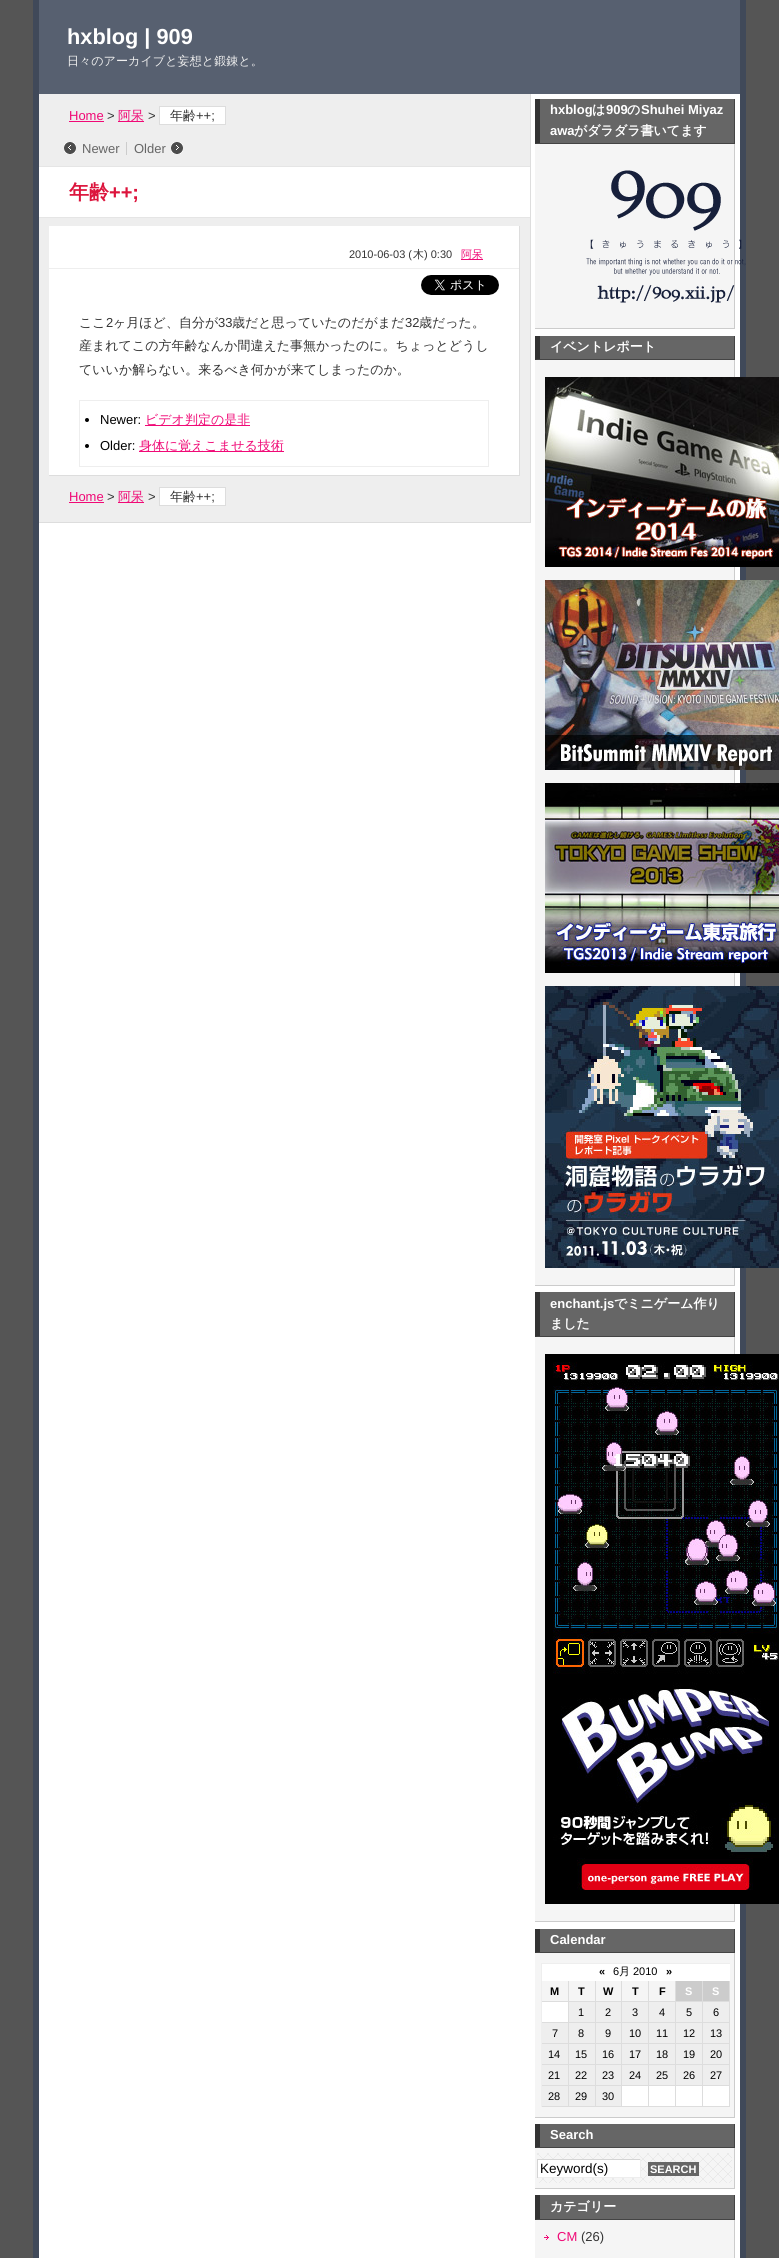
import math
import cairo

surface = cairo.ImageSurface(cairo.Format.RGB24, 779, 2258)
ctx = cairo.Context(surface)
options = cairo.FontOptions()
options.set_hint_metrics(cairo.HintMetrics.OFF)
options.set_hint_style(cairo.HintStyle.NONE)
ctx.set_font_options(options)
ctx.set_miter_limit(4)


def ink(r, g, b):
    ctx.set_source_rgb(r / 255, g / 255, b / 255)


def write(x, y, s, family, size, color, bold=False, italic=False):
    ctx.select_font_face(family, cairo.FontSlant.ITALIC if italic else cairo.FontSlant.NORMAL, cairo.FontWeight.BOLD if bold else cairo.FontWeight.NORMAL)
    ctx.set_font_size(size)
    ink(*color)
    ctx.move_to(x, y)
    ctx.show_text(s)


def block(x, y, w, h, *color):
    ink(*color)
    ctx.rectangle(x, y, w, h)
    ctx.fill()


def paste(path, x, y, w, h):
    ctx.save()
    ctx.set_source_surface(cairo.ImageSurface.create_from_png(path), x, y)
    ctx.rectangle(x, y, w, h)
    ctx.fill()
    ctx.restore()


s1 = dict(family="Liberation Sans", size=21.75, color=(255, 255, 255), bold=True)
s2 = dict(family="WenQuanYi Zen Hei Medium", size=12.1, color=(238, 238, 238))
s3 = dict(family="Liberation Sans", size=13, color=(240, 9, 118))
s4 = dict(family="Liberation Sans", size=13, color=(51, 51, 51))
s5 = dict(family="WenQuanYi Zen Hei Medium", size=13, color=(240, 9, 118))
s6 = dict(family="WenQuanYi Zen Hei Medium", size=13, color=(51, 51, 51))
s7 = dict(family="Liberation Sans", size=13, color=(102, 102, 102))
s8 = dict(family="WenQuanYi Zen Hei", size=20, color=(220, 20, 60), bold=True)
s9 = dict(family="Liberation Sans", size=20, color=(220, 20, 60), bold=True)
s10 = dict(family="Liberation Sans", size=11, color=(51, 51, 51))
s11 = dict(family="WenQuanYi Zen Hei Medium", size=11, color=(51, 51, 51))
s12 = dict(family="WenQuanYi Zen Hei Medium", size=11, color=(240, 9, 118))
s13 = dict(family="Liberation Sans", size=13, color=(0, 0, 0))
s14 = dict(family="Liberation Sans", size=13, color=(255, 255, 255), bold=True)
s15 = dict(family="WenQuanYi Zen Hei", size=13, color=(255, 255, 255), bold=True)
s16 = dict(family="Liberation Sans", size=11, color=(0, 0, 0), bold=True)
s17 = dict(family="Liberation Sans", size=11, color=(0, 0, 0))
s18 = dict(family="WenQuanYi Zen Hei Medium", size=11, color=(0, 0, 0))
s19 = dict(family="Liberation Sans", size=11, color=(255, 255, 255), bold=True)
s20 = dict(family="Liberation Sans", size=13.5, color=(0, 0, 0))

ink(85, 85, 85)
ctx.paint()
block(39, 0, 701, 94, 87, 96, 112)
block(740, 0, 6, 2258, 64, 73, 89)
block(33, 0, 6, 2258, 64, 73, 89)
write(67, 44, "hxblog | 909", **s1)
write(67, 65, "日々のアーカイブと妄想と鍛錬と。", **s2)
block(39, 94, 701, 2164, 255, 255, 255)
block(39, 94, 491, 428, 238, 238, 238)
block(530, 94, 1, 429, 221, 221, 221)
block(39, 522, 492, 1, 221, 221, 221)
write(69, 120, "Home", **s3)
block(69, 121, 35, 1, 240, 9, 118)
write(107, 120, ">", **s4)
block(118, 121, 26, 1, 240, 9, 118)
write(118, 120, "阿呆", **s5)
write(148, 120, ">", **s4)
ink(255, 255, 255)
ctx.rectangle(159.5, 106.5, 66, 18)
ctx.fill_preserve()
ink(221, 221, 221)
ctx.set_line_width(1)
ctx.stroke()
write(170, 120, "年齢", **s6)
write(196, 120, "++;", **s4)
paste("pic1.png", 64, 142, 12, 12)
write(82, 153, "Newer", **s7)
paste("pic2.png", 171, 142, 12, 12)
block(126, 142, 1, 13, 204, 204, 204)
write(134, 153, "Older", **s7)
block(39, 167, 491, 50, 255, 255, 255)
block(39, 166, 491, 1, 229, 229, 229)
block(39, 217, 491, 1, 229, 229, 229)
write(69, 199, "年齢", **s8)
write(109, 199, "++;", **s9)
block(49, 226, 470, 249, 255, 255, 255)
block(519, 226, 1, 250, 221, 221, 221)
block(49, 475, 471, 1, 221, 221, 221)
write(349, 258, "2010-06-03 (", **s10)
write(413, 258, "木", **s11)
write(424, 258, ") 0:30", **s10)
block(461, 259, 22, 1, 240, 9, 118)
write(461, 258, "阿呆", **s12)
block(49, 268, 470, 1, 238, 238, 238)
paste("pic3.png", 421, 275, 78, 20)
write(79, 327, "ここ", **s6)
write(106, 327, "2", **s4)
write(113, 327, "ヶ月ほど、自分が", **s6)
write(218, 327, "33", **s4)
write(232, 327, "歳だと思っていたのだがまだ", **s6)
write(405, 327, "32", **s4)
write(419, 327, "歳だった。", **s6)
write(79, 350, "産まれてこの方年齢なんか間違えた事無かったのに。ちょっとどうし", **s6)
write(79, 374, "ていいか解らない。来るべき何かが来てしまったのか。", **s6)
ctx.rectangle(79.5, 400.5, 409, 66)
ink(238, 238, 238)
ctx.stroke()
ink(0, 0, 0)
ctx.arc(87, 420, 2, 0, 2 * math.pi)
ctx.fill()
write(100, 424, "Newer:", **s13)
block(145, 425, 105, 1, 240, 9, 118)
write(145, 424, "ビデオ判定の是非", **s5)
ink(0, 0, 0)
ctx.new_path()
ctx.arc(87, 446, 2, 0, 2 * math.pi)
ctx.fill()
write(100, 450, "Older:", **s13)
block(139, 451, 145, 1, 240, 9, 118)
write(139, 450, "身体に覚えこませる技術", **s5)
write(69, 501, "Home", **s3)
block(69, 502, 35, 1, 240, 9, 118)
write(107, 501, ">", **s4)
block(118, 502, 26, 1, 240, 9, 118)
write(118, 501, "阿呆", **s5)
write(148, 501, ">", **s4)
ink(255, 255, 255)
ctx.rectangle(159.5, 487.5, 66, 18)
ctx.fill_preserve()
ink(221, 221, 221)
ctx.stroke()
write(170, 501, "年齢", **s6)
write(196, 501, "++;", **s4)
block(535, 99, 199, 45, 102, 102, 102)
block(734, 99, 1, 45, 68, 68, 68)
ctx.new_path()
ctx.move_to(735, 144)
ctx.line_to(535, 144)
ctx.line_to(540, 143)
ctx.line_to(734, 143)
ctx.close_path()
ctx.fill()
ink(51, 51, 51)
ctx.new_path()
ctx.move_to(535, 144)
ctx.line_to(535, 99)
ctx.line_to(540, 99)
ctx.line_to(540, 143)
ctx.close_path()
ctx.fill()
write(550, 114, "hxblog", **s14)
write(592, 114, "は", **s15)
write(606, 114, "909", **s14)
write(627, 114, "の", **s15)
write(641, 114, "Shuhei Miyaz", **s14)
write(550, 135, "awa", **s14)
write(574, 135, "がダラダラ書いてます", **s15)
block(535, 144, 199, 184, 245, 245, 245)
block(734, 144, 1, 185, 204, 204, 204)
block(535, 328, 200, 1, 204, 204, 204)
paste("pic4.png", 586, 170, 160, 133)
block(535, 336, 199, 24, 102, 102, 102)
block(734, 336, 1, 24, 68, 68, 68)
ctx.new_path()
ctx.move_to(735, 360)
ctx.line_to(535, 360)
ctx.line_to(540, 359)
ctx.line_to(734, 359)
ctx.close_path()
ctx.fill()
ink(51, 51, 51)
ctx.new_path()
ctx.move_to(535, 360)
ctx.line_to(535, 336)
ctx.line_to(540, 336)
ctx.line_to(540, 359)
ctx.close_path()
ctx.fill()
write(550, 351, "イベントレポート", **s15)
block(535, 360, 199, 925, 245, 245, 245)
block(734, 360, 1, 926, 204, 204, 204)
block(535, 1285, 200, 1, 204, 204, 204)
paste("pic5.png", 545, 377, 234, 190)
paste("pic6.png", 545, 580, 234, 190)
paste("pic7.png", 545, 783, 234, 190)
paste("pic8.png", 545, 986, 234, 282)
block(535, 1292, 199, 45, 102, 102, 102)
block(734, 1292, 1, 45, 68, 68, 68)
ctx.new_path()
ctx.move_to(735, 1337)
ctx.line_to(535, 1337)
ctx.line_to(540, 1336)
ctx.line_to(734, 1336)
ctx.close_path()
ctx.fill()
ink(51, 51, 51)
ctx.new_path()
ctx.move_to(535, 1337)
ctx.line_to(535, 1292)
ctx.line_to(540, 1292)
ctx.line_to(540, 1336)
ctx.close_path()
ctx.fill()
write(550, 1308, "enchant.js", **s14)
write(614, 1308, "でミニゲーム作り", **s15)
write(550, 1328, "ました", **s15)
block(535, 1337, 199, 584, 245, 245, 245)
block(734, 1337, 1, 585, 204, 204, 204)
block(535, 1921, 200, 1, 204, 204, 204)
paste("pic9.png", 545, 1354, 234, 550)
block(535, 1929, 199, 24, 102, 102, 102)
block(734, 1929, 1, 24, 68, 68, 68)
ctx.new_path()
ctx.move_to(735, 1953)
ctx.line_to(535, 1953)
ctx.line_to(540, 1952)
ctx.line_to(734, 1952)
ctx.close_path()
ctx.fill()
ink(51, 51, 51)
ctx.new_path()
ctx.move_to(535, 1953)
ctx.line_to(535, 1929)
ctx.line_to(540, 1929)
ctx.line_to(540, 1952)
ctx.close_path()
ctx.fill()
write(550, 1944, "Calendar", **s14)
block(535, 1953, 199, 164, 245, 245, 245)
block(734, 1953, 1, 165, 204, 204, 204)
block(535, 2117, 200, 1, 204, 204, 204)
block(542, 1964, 188, 142, 255, 255, 255)
block(541, 1963, 189, 1, 238, 238, 238)
block(541, 1963, 1, 144, 238, 238, 238)
write(599, 1975, "«", **s16)
write(613, 1975, "6", **s17)
write(619, 1975, "月", **s18)
write(633, 1975, "2010", **s17)
write(666, 1975, "»", **s16)
block(542, 1981, 26, 20, 245, 245, 245)
block(568, 1981, 1, 126, 221, 221, 221)
block(542, 2001, 27, 1, 221, 221, 221)
write(550, 1995, "M", **s16)
block(569, 1981, 26, 20, 245, 245, 245)
block(595, 1981, 1, 126, 221, 221, 221)
block(569, 2001, 27, 1, 221, 221, 221)
write(578, 1995, "T", **s16)
block(596, 1981, 25, 20, 245, 245, 245)
block(621, 1981, 1, 126, 221, 221, 221)
block(596, 2001, 26, 1, 221, 221, 221)
write(603, 1995, "W", **s16)
block(622, 1981, 26, 20, 245, 245, 245)
block(648, 1981, 1, 126, 221, 221, 221)
block(622, 2001, 27, 1, 221, 221, 221)
write(632, 1995, "T", **s16)
block(649, 1981, 26, 20, 245, 245, 245)
block(675, 1981, 1, 126, 221, 221, 221)
block(649, 2001, 27, 1, 221, 221, 221)
write(659, 1995, "F", **s16)
block(676, 1981, 26, 20, 204, 204, 204)
block(702, 1981, 1, 126, 221, 221, 221)
block(676, 2001, 27, 1, 221, 221, 221)
write(685, 1995, "S", **s19)
block(703, 1981, 26, 20, 204, 204, 204)
block(729, 1981, 1, 126, 221, 221, 221)
block(703, 2001, 27, 1, 221, 221, 221)
write(712, 1995, "S", **s19)
block(569, 2002, 26, 20, 238, 238, 238)
write(578, 2016, "1", **s17)
block(596, 2002, 25, 20, 238, 238, 238)
write(605, 2016, "2", **s17)
block(622, 2002, 26, 20, 238, 238, 238)
write(632, 2016, "3", **s17)
block(649, 2002, 26, 20, 238, 238, 238)
write(659, 2016, "4", **s17)
block(676, 2002, 26, 20, 238, 238, 238)
write(686, 2016, "5", **s17)
block(703, 2002, 26, 20, 238, 238, 238)
write(713, 2016, "6", **s17)
block(542, 2022, 188, 1, 221, 221, 221)
block(542, 2043, 188, 1, 221, 221, 221)
block(542, 2023, 26, 20, 238, 238, 238)
write(552, 2037, "7", **s17)
block(569, 2023, 26, 20, 238, 238, 238)
write(578, 2037, "8", **s17)
block(596, 2023, 25, 20, 238, 238, 238)
write(605, 2037, "9", **s17)
block(622, 2023, 26, 20, 238, 238, 238)
write(629, 2037, "10", **s17)
block(649, 2023, 26, 20, 238, 238, 238)
write(656, 2037, "11", **s17)
block(676, 2023, 26, 20, 238, 238, 238)
write(683, 2037, "12", **s17)
block(703, 2023, 26, 20, 238, 238, 238)
write(710, 2037, "13", **s17)
block(542, 2064, 188, 1, 221, 221, 221)
block(542, 2044, 26, 20, 238, 238, 238)
write(548, 2058, "14", **s17)
block(569, 2044, 26, 20, 238, 238, 238)
write(575, 2058, "15", **s17)
block(596, 2044, 25, 20, 238, 238, 238)
write(602, 2058, "16", **s17)
block(622, 2044, 26, 20, 238, 238, 238)
write(629, 2058, "17", **s17)
block(649, 2044, 26, 20, 238, 238, 238)
write(656, 2058, "18", **s17)
block(676, 2044, 26, 20, 238, 238, 238)
write(683, 2058, "19", **s17)
block(703, 2044, 26, 20, 238, 238, 238)
write(710, 2058, "20", **s17)
block(542, 2085, 188, 1, 221, 221, 221)
block(542, 2065, 26, 20, 238, 238, 238)
write(548, 2079, "21", **s17)
block(569, 2065, 26, 20, 238, 238, 238)
write(575, 2079, "22", **s17)
block(596, 2065, 25, 20, 238, 238, 238)
write(602, 2079, "23", **s17)
block(622, 2065, 26, 20, 238, 238, 238)
write(629, 2079, "24", **s17)
block(649, 2065, 26, 20, 238, 238, 238)
write(656, 2079, "25", **s17)
block(676, 2065, 26, 20, 238, 238, 238)
write(683, 2079, "26", **s17)
block(703, 2065, 26, 20, 238, 238, 238)
write(710, 2079, "27", **s17)
block(542, 2106, 188, 1, 221, 221, 221)
block(542, 2086, 26, 20, 238, 238, 238)
write(548, 2100, "28", **s17)
block(569, 2086, 26, 20, 238, 238, 238)
write(575, 2100, "29", **s17)
block(596, 2086, 25, 20, 238, 238, 238)
write(602, 2100, "30", **s17)
block(535, 2124, 199, 24, 102, 102, 102)
block(734, 2124, 1, 24, 68, 68, 68)
ctx.new_path()
ctx.move_to(735, 2148)
ctx.line_to(535, 2148)
ctx.line_to(540, 2147)
ctx.line_to(734, 2147)
ctx.close_path()
ctx.fill()
ink(51, 51, 51)
ctx.new_path()
ctx.move_to(535, 2148)
ctx.line_to(535, 2124)
ctx.line_to(540, 2124)
ctx.line_to(540, 2147)
ctx.close_path()
ctx.fill()
write(550, 2139, "Search", **s14)
block(535, 2148, 199, 40, 245, 245, 245)
block(734, 2148, 1, 41, 204, 204, 204)
block(535, 2188, 200, 1, 204, 204, 204)
paste("pic10.png", 537, 2153, 195, 30)
block(538, 2160, 102, 17, 255, 255, 255)
block(537, 2159, 104, 1, 212, 212, 212)
block(640, 2159, 1, 19, 238, 238, 238)
block(537, 2177, 104, 1, 238, 238, 238)
block(537, 2159, 1, 19, 212, 212, 212)
write(540, 2173, "Keyword(s)", **s20)
block(648, 2162, 51, 14, 102, 102, 102)
write(650, 2173, "SEARCH", **s19)
block(535, 2195, 199, 25, 102, 102, 102)
block(734, 2195, 1, 25, 68, 68, 68)
ctx.new_path()
ctx.move_to(735, 2220)
ctx.line_to(535, 2220)
ctx.line_to(540, 2219)
ctx.line_to(734, 2219)
ctx.close_path()
ctx.fill()
ink(51, 51, 51)
ctx.new_path()
ctx.move_to(535, 2220)
ctx.line_to(535, 2195)
ctx.line_to(540, 2195)
ctx.line_to(540, 2219)
ctx.close_path()
ctx.fill()
write(550, 2211, "カテゴリー", **s15)
block(535, 2220, 199, 38, 245, 245, 245)
block(734, 2220, 1, 38, 204, 204, 204)
paste("pic11.png", 544, 2235, 5, 5)
write(557, 2241, "CM", **s3)
write(581, 2241, "(26)", **s4)
surface.write_to_png("screenshot.png")
